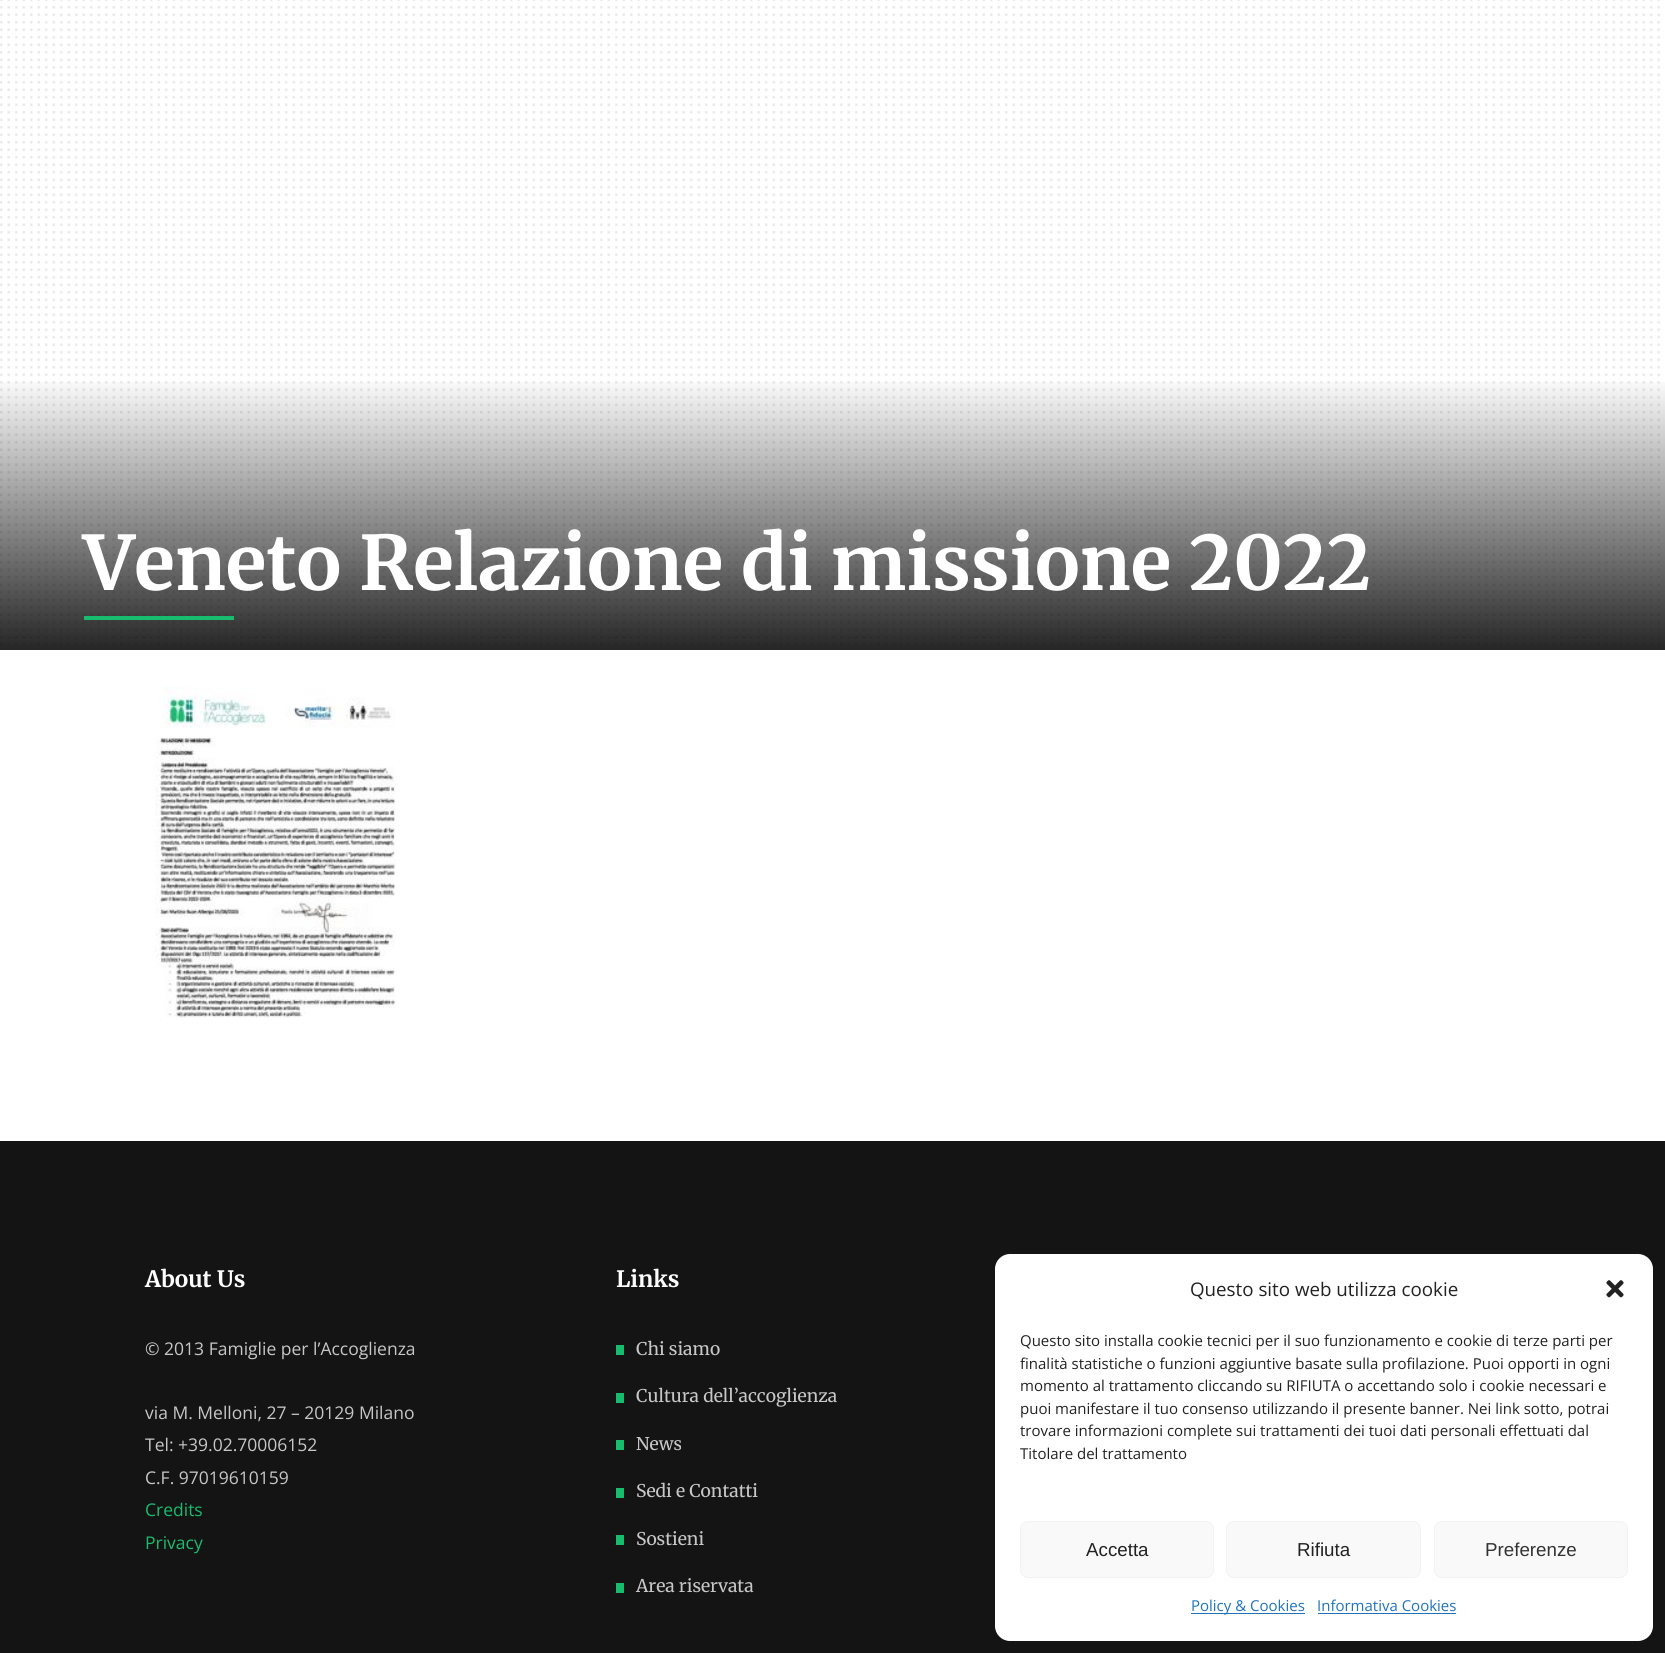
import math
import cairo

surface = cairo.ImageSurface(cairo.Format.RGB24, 1665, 1653)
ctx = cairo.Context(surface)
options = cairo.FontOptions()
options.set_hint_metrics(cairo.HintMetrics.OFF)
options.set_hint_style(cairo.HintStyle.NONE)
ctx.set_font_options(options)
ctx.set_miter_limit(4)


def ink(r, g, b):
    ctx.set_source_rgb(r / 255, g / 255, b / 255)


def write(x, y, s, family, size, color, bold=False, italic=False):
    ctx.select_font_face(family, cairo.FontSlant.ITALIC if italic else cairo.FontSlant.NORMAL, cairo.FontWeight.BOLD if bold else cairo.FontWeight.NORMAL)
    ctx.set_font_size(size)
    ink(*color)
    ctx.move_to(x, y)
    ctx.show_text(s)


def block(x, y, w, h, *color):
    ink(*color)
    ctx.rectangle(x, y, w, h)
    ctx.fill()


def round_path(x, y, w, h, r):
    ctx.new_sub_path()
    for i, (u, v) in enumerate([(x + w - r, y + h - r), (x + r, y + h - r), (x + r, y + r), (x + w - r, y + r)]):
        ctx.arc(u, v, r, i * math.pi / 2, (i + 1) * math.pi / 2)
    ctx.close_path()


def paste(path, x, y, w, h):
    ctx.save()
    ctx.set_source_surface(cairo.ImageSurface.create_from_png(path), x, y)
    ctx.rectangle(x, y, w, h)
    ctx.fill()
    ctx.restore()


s1 = dict(family="Merriweather", size=75, color=(255, 255, 255), bold=True)
s2 = dict(family="Merriweather", size=22.5, color=(255, 255, 255), bold=True)
s3 = dict(family="Open Sans", size=17.5, color=(199, 199, 199))
s4 = dict(family="Open Sans", size=17.5, color=(24, 188, 110))
s5 = dict(family="Merriweather", size=17.5, color=(199, 199, 199))
s6 = dict(family="Open Sans", size=18.75, color=(34, 34, 34))
s7 = dict(family="Open Sans", size=15, color=(34, 34, 34))
s8 = dict(family="Liberation Sans", size=18.75, color=(34, 34, 34))
s9 = dict(family="Liberation Sans", size=18.75, color=(51, 51, 51))
s10 = dict(family="Open Sans", size=15, color=(30, 115, 190))

ink(255, 255, 255)
ctx.paint()
paste("pic1.png", 0, 0, 1660, 646)
gradient = cairo.LinearGradient(833, 375, 833, 650)
gradient.add_color_stop_rgba(0, 0, 0, 0, 0)
gradient.add_color_stop_rgba(1, 0, 0, 0, 0.85)
ctx.set_source(gradient)
ctx.rectangle(0, 382, 1665, 268)
ctx.fill()
write(83, 590, "Veneto Relazione di missione 2022", **s1)
block(84, 616, 150, 4, 24, 188, 110)
paste("pic2.png", 155, 687, 241, 331)
block(0, 1141, 1665, 512, 20, 20, 20)
write(145, 1287, "About Us", **s2)
write(145, 1355, "© 2013 Famiglie per l’Accoglienza", **s3)
write(145, 1419, "via M. Melloni, 27 – 20129 Milano", **s3)
write(145, 1451, "Tel: +39.02.70006152", **s3)
write(145, 1484, "C.F. 97019610159", **s3)
write(145, 1516, "Credits", **s4)
write(145, 1549, "Privacy", **s4)
write(616, 1287, "Links", **s2)
block(616, 1345, 8, 10, 24, 188, 110)
write(636, 1355, "Chi siamo", **s5)
block(616, 1393, 8, 10, 24, 188, 110)
write(636, 1402, "Cultura dell’accoglienza", **s5)
block(616, 1440, 8, 10, 24, 188, 110)
write(636, 1450, "News", **s5)
block(616, 1488, 8, 10, 24, 188, 110)
write(636, 1497, "Sedi e Contatti", **s5)
block(616, 1535, 8, 10, 24, 188, 110)
write(636, 1545, "Sostieni", **s5)
block(616, 1583, 8, 10, 24, 188, 110)
write(636, 1592, "Area riservata", **s5)
ink(255, 255, 255)
round_path(995, 1254, 658, 387, 15)
ctx.fill()
write(1190, 1296, "Questo sito web utilizza cookie", **s6)
paste("pic3.png", 1606, 1280, 18, 18)
write(1020, 1346, "Questo sito installa cookie tecnici per il suo funzionamento e cookie di terze parti per", **s7)
write(1020, 1369, "finalità statistiche o funzioni aggiuntive basate sulla profilazione. Puoi opporti in ogni", **s7)
write(1020, 1391, "momento al trattamento cliccando su RIFIUTA o accettando solo i cookie necessari e", **s7)
write(1020, 1414, "puoi manifestare il tuo consenso utilizzando il presente banner. Nei link sotto, potrai", **s7)
write(1020, 1436, "trovare informazioni complete sui trattamenti dei tuoi dati personali effettuati dal", **s7)
write(1020, 1459, "Titolare del trattamento", **s7)
ink(249, 249, 249)
round_path(1020.5, 1521.5, 193, 56, 7.5)
ctx.fill_preserve()
ink(242, 242, 242)
ctx.set_line_width(1)
ctx.stroke()
write(1086, 1556, "Accetta", **s8)
ink(249, 249, 249)
round_path(1226.5, 1521.5, 194, 56, 7.5)
ctx.fill_preserve()
ink(242, 242, 242)
ctx.stroke()
write(1297, 1556, "Rifiuta", **s8)
ink(249, 249, 249)
round_path(1434.5, 1521.5, 193, 56, 7.5)
ctx.fill_preserve()
ink(242, 242, 242)
ctx.stroke()
write(1485, 1556, "Preferenze", **s9)
block(1191, 1613, 114, 1, 30, 115, 190)
write(1191, 1611, "Policy & Cookies", **s10)
write(1317, 1611, "Informativa Cookies", **s10)
block(1318, 1613, 138, 1, 30, 115, 190)
surface.write_to_png("screenshot.png")
